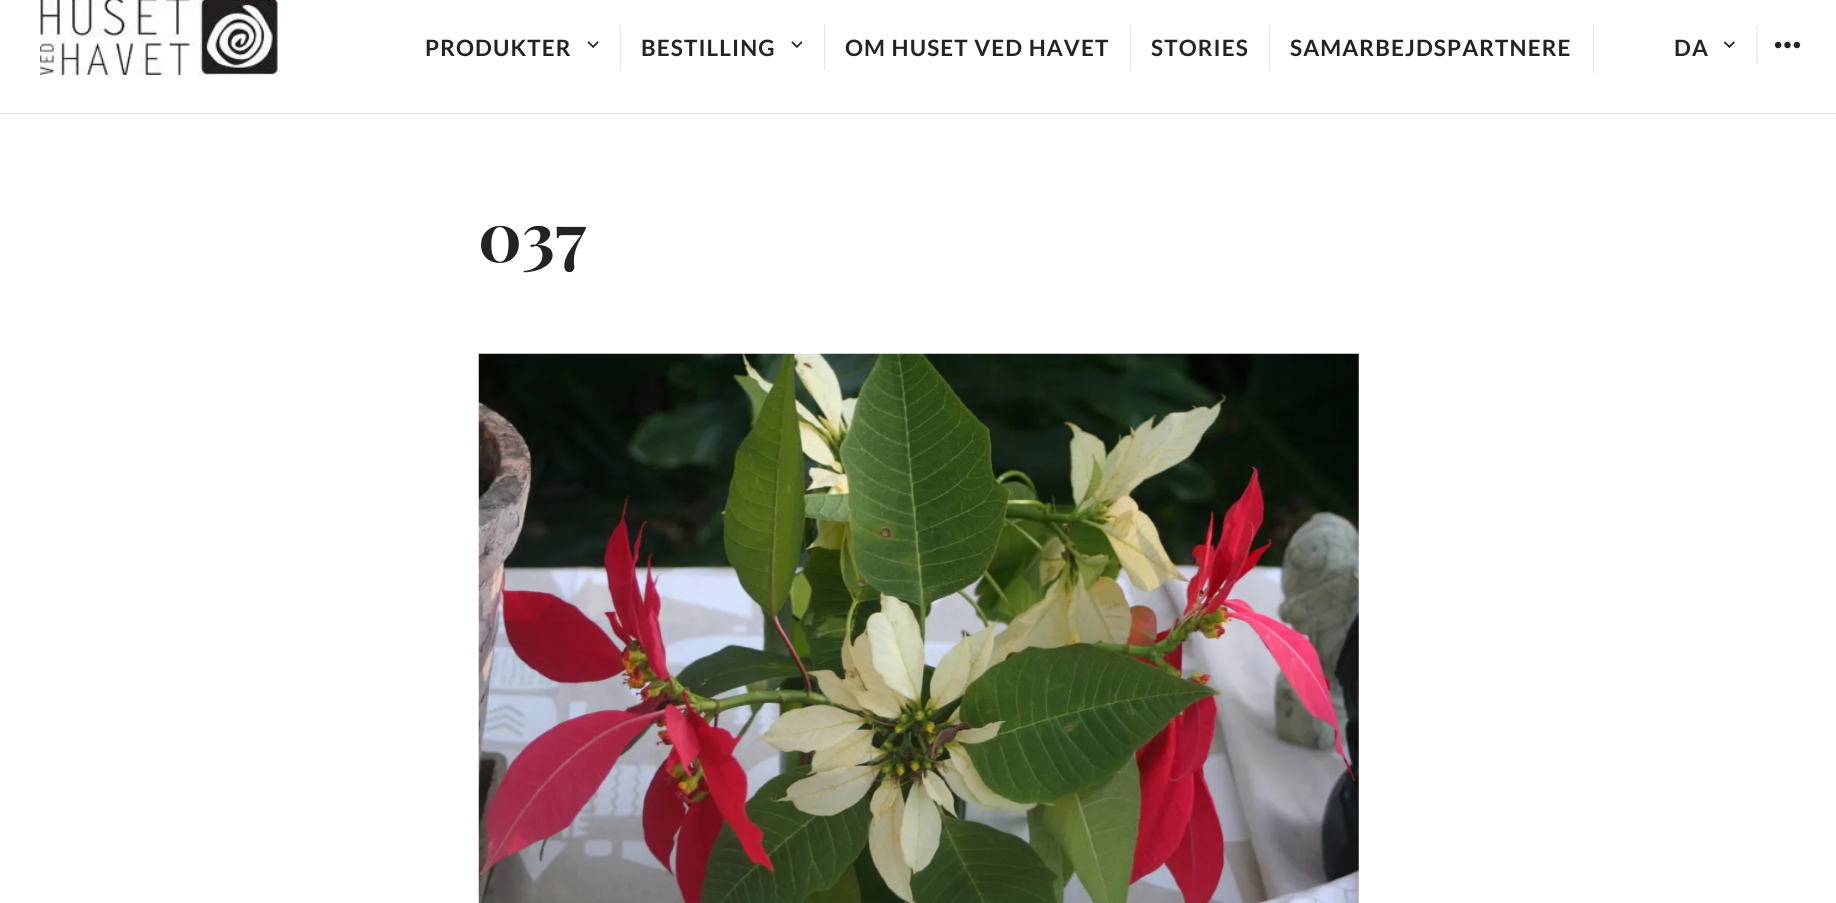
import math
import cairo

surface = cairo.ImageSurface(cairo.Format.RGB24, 1836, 903)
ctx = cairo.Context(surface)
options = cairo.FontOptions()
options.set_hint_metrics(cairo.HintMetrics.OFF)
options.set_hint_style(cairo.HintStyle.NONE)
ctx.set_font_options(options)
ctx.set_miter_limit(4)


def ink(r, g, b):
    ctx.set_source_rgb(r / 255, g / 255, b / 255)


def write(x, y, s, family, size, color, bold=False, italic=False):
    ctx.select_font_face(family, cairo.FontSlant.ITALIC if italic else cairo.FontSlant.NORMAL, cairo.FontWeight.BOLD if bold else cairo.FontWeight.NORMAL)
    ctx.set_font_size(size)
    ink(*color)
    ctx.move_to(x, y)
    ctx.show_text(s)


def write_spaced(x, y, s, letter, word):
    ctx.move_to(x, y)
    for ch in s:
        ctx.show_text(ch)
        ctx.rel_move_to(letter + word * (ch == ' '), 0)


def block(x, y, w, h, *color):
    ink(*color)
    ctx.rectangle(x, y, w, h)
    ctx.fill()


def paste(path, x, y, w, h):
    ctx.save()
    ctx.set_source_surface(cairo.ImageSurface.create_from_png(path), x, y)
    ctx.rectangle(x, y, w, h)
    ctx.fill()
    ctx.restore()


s1 = dict(family="Playfair Display", size=68, color=(35, 35, 35), bold=True)

ink(255, 255, 255)
ctx.paint()
block(0, 113, 1836, 1, 230, 230, 230)
paste("pic1.png", 40, 0, 238, 75)
ctx.select_font_face("Lato", cairo.FontSlant.NORMAL, cairo.FontWeight.BOLD)
ctx.set_font_size(22.5)
ink(35, 35, 35)
write_spaced(425, 56, "PRODUKTER", 1.1, 0)
paste("pic2.png", 587, 41, 12, 7)
block(620, 25, 1, 45, 230, 230, 230)
ink(35, 35, 35)
write_spaced(641, 56, "BESTILLING", 1.1, 0)
paste("pic3.png", 791, 41, 12, 7)
block(824, 25, 1, 45, 230, 230, 230)
ink(35, 35, 35)
write_spaced(845, 56, "OM HUSET VED HAVET", 1.1, 0)
block(1130, 25, 1, 45, 230, 230, 230)
ink(35, 35, 35)
write_spaced(1151, 56, "STORIES", 1.1, 0)
block(1269, 25, 1, 45, 230, 230, 230)
ink(35, 35, 35)
write_spaced(1290, 56, "SAMARBEJDSPARTNERE", 1.1, 0)
block(1593, 25, 1, 48, 230, 230, 230)
ink(35, 35, 35)
write_spaced(1674, 56, "DA", 1.1, 0)
paste("pic4.png", 1723, 41, 12, 7)
ctx.new_path()
ctx.move_to(1757.5, 64)
ctx.line_to(1757, 62.5)
ctx.line_to(1757, 27.5)
ctx.line_to(1757.5, 26)
ink(230, 230, 230)
ctx.set_line_width(1.2)
ctx.stroke()
paste("pic5.png", 1774, 41, 27, 8)
write(478, 262, "037", **s1)
paste("pic6.png", 478, 353, 881, 550)
surface.write_to_png("screenshot.png")
